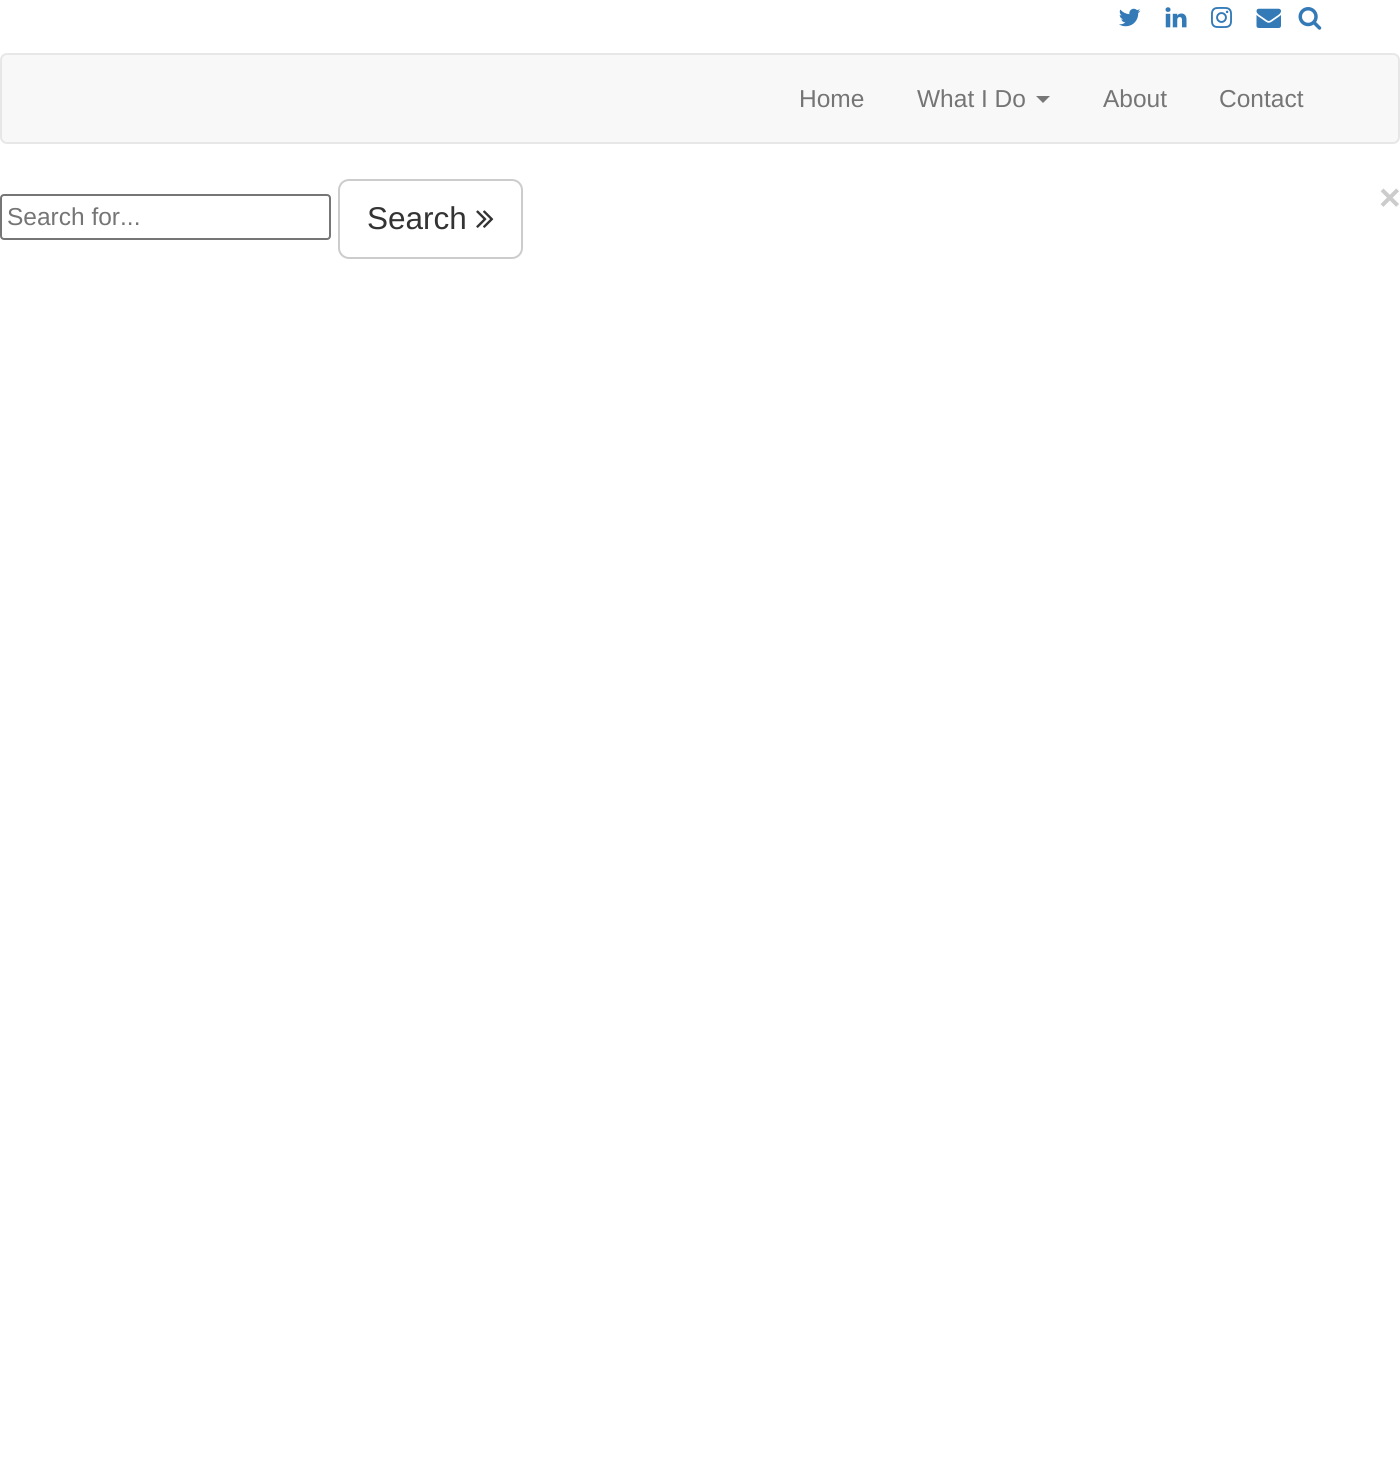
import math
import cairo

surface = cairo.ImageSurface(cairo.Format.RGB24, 1400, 1457)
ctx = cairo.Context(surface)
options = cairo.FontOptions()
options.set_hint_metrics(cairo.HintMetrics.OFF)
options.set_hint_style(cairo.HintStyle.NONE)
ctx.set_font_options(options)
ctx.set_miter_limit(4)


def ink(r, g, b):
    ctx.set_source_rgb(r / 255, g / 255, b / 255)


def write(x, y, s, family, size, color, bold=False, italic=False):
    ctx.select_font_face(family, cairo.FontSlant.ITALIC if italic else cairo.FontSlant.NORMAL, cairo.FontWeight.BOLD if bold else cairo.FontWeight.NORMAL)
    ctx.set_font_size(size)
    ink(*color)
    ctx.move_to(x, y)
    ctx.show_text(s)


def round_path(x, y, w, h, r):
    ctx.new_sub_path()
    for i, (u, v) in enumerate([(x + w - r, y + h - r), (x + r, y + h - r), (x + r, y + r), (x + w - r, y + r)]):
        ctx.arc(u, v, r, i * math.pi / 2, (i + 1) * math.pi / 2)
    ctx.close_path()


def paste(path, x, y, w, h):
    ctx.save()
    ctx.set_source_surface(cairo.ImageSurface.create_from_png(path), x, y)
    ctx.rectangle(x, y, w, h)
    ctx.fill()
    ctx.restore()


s1 = dict(family="Liberation Sans", size=24.5, color=(117, 117, 117))
s2 = dict(family="Liberation Sans", size=37, color=(204, 204, 204), bold=True)
s3 = dict(family="Liberation Sans", size=31.5, color=(51, 51, 51))

ink(255, 255, 255)
ctx.paint()
paste("pic1.png", 1119, 8, 22, 19)
paste("pic2.png", 1165, 7, 22, 21)
paste("pic3.png", 1211, 7, 21, 21)
paste("pic4.png", 1256, 8, 25, 20)
paste("pic5.png", 1298, 7, 24, 23)
ink(248, 248, 248)
round_path(1, 54, 1398, 89, 6)
ctx.fill_preserve()
ink(231, 231, 231)
ctx.stroke()
write(799, 107, "Home", **s1)
write(917, 107, "What I Do", **s1)
ink(119, 119, 119)
ctx.new_path()
ctx.move_to(1036, 96)
ctx.line_to(1050, 96)
ctx.line_to(1043, 103)
ctx.close_path()
ctx.fill()
write(1103, 107, "About", **s1)
write(1219, 107, "Contact", **s1)
write(1379, 210, "×", **s2)
round_path(1, 195, 329, 44, 3)
ink(118, 118, 118)
ctx.stroke()
write(7, 225, "Search for...", **s1)
round_path(339, 180, 183, 78, 10)
ink(204, 204, 204)
ctx.stroke()
write(367, 229, "Search", **s3)
paste("pic6.png", 476, 210, 18, 18)
surface.write_to_png("screenshot.png")
